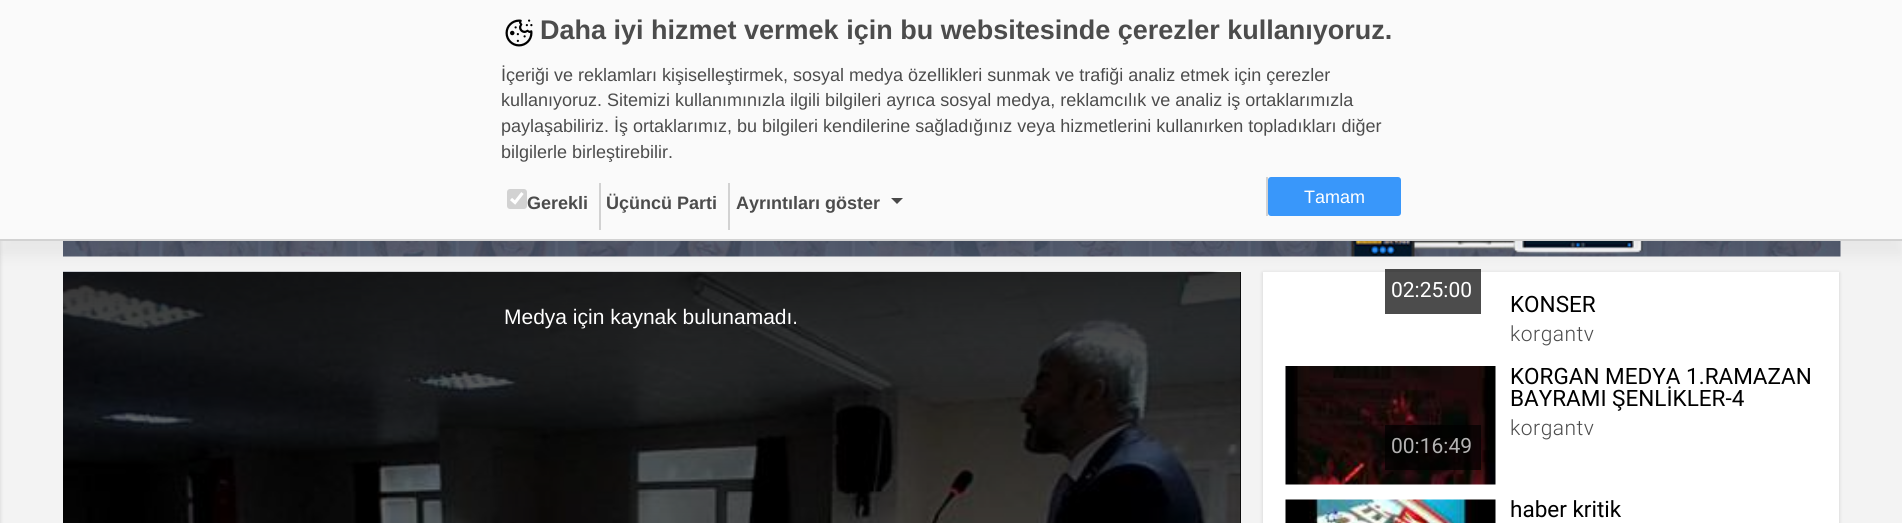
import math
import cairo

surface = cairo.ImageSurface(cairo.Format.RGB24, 1902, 523)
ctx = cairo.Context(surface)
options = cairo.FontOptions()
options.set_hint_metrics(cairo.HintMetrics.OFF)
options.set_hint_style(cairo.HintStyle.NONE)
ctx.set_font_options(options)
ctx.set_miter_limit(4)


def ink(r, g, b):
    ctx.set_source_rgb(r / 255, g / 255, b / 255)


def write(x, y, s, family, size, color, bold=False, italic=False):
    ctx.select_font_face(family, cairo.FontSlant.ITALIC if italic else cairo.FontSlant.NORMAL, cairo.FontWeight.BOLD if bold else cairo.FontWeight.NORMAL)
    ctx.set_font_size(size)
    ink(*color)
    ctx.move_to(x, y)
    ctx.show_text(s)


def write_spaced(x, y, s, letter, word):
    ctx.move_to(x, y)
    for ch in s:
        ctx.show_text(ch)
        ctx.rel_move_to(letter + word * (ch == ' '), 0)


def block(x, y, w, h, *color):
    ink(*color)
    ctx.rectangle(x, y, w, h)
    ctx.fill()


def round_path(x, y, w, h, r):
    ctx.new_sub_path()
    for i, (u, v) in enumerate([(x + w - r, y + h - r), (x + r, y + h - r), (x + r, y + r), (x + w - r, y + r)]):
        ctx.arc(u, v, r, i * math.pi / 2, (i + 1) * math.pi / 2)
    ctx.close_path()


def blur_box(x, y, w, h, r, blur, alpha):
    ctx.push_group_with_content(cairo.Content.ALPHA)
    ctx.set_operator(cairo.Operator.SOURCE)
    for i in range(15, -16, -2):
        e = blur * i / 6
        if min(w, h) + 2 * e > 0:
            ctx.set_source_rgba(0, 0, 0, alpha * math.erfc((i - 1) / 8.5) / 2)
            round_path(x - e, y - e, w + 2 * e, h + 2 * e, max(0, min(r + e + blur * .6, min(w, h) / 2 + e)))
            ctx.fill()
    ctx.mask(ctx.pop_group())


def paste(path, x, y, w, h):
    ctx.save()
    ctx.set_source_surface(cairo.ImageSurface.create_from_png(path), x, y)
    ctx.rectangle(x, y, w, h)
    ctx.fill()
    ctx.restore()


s1 = dict(family="Liberation Sans", size=27, color=(76, 76, 76), bold=True)
s2 = dict(family="Liberation Sans", size=18, color=(76, 76, 76))
s3 = dict(family="Liberation Sans", size=18, color=(76, 76, 76), bold=True)
s4 = dict(family="Liberation Sans", size=18, color=(255, 255, 255))
s5 = dict(family="Liberation Sans", size=21, color=(255, 255, 255))
s6 = dict(family="Roboto", size=21, color=(255, 255, 255))
s7 = dict(family="Roboto", size=22.5, color=(0, 0, 0))
s8 = dict(family="Roboto", size=21, color=(180, 179, 179))

ink(243, 243, 243)
ctx.paint()
paste("pic2.png", 63, 241, 1778, 16)
block(1240, 272, 1, 251, 0, 0, 0)
paste("pic3.png", 63, 271, 1178, 252)
gradient = cairo.LinearGradient(652, 271, 652, 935)
gradient.add_color_stop_rgba(0, 0, 0, 0, 0.8)
gradient.add_color_stop_rgba(1, 0, 0, 0, 0)
ctx.set_source(gradient)
ctx.rectangle(63, 272, 1178, 251)
ctx.fill()
ink(0, 0, 0)
blur_box(1263, 273, 576, 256, 0, 2, 0.15)
block(1263, 272, 576, 251, 255, 255, 255)
ctx.set_source_rgba(0, 0, 0, 0.7)
ctx.rectangle(1385, 269, 96, 45)
ctx.fill()
ink(0, 0, 0)
blur_box(0, 15, 1902, 240, 0, 7.5, 0.05)
blur_box(-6, 2, 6, 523, 0, 2, 0.15)
block(0, 0, 1902, 239, 250, 250, 250)
block(0, 239, 1902, 2, 210, 210, 210)
paste("pic1.png", 505, 19, 28, 28)
write(540, 39, "Daha iyi hizmet vermek için bu websitesinde çerezler kullanıyoruz.", **s1)
write(501, 81, "İçeriği ve reklamları kişiselleştirmek, sosyal medya özellikleri sunmak ve trafiği analiz etmek için çerezler", **s2)
write(501, 106, "kullanıyoruz. Sitemizi kullanımınızla ilgili bilgileri ayrıca sosyal medya, reklamcılık ve analiz iş ortaklarımızla", **s2)
write(501, 132, "paylaşabiliriz. İş ortaklarımız, bu bilgileri kendilerine sağladığınız veya hizmetlerini kullanırken topladıkları diğer", **s2)
write(501, 158, "bilgilerle birleştirebilir.", **s2)
ink(210, 210, 210)
round_path(507, 189, 20, 20, 3)
ctx.fill()
ctx.new_path()
ctx.move_to(511, 199)
ctx.line_to(515, 202.5)
ctx.line_to(522.5, 193)
ink(255, 255, 255)
ctx.set_line_width(3.1)
ctx.stroke()
write(527, 209, "Gerekli", **s3)
block(599, 183, 2, 47, 210, 210, 210)
write(606, 209, "Üçüncü Parti", **s3)
block(728, 183, 2, 47, 210, 210, 210)
write(736, 209, "Ayrıntıları göster", **s3)
ink(72, 72, 72)
ctx.new_path()
ctx.move_to(891, 198)
ctx.line_to(903, 198)
ctx.line_to(897, 204)
ctx.close_path()
ctx.fill()
block(1266, 177, 2, 39, 210, 210, 210)
ink(57, 151, 250)
round_path(1268, 177, 133, 39, 3)
ctx.fill()
write(1304, 203, "Tamam", **s4)
write(504, 324, "Medya için kaynak bulunamadı.", **s5)
write(1391, 297, "02:25:00", **s6)
write(1510, 312, "KONSER", **s7)
ctx.select_font_face("Roboto Light")
ctx.set_font_size(21)
ink(76, 76, 76)
write_spaced(1510, 341, "korgantv", 0.5, 0)
write(1510, 384, "KORGAN MEDYA 1.RAMAZAN", **s7)
write(1510, 406, "BAYRAMI ŞENLİKLER-4", **s7)
ctx.select_font_face("Roboto Light")
ctx.set_font_size(21)
ink(76, 76, 76)
write_spaced(1510, 435, "korgantv", 0.5, 0)
paste("pic4.png", 1285, 366, 211, 119)
ctx.set_source_rgba(0, 0, 0, 0.7)
ctx.rectangle(1385, 425, 96, 45)
ctx.fill()
write(1391, 453, "00:16:49", **s8)
paste("pic5.png", 1285, 499, 211, 24)
write(1510, 517, "haber kritik", **s7)
surface.write_to_png("screenshot.png")
